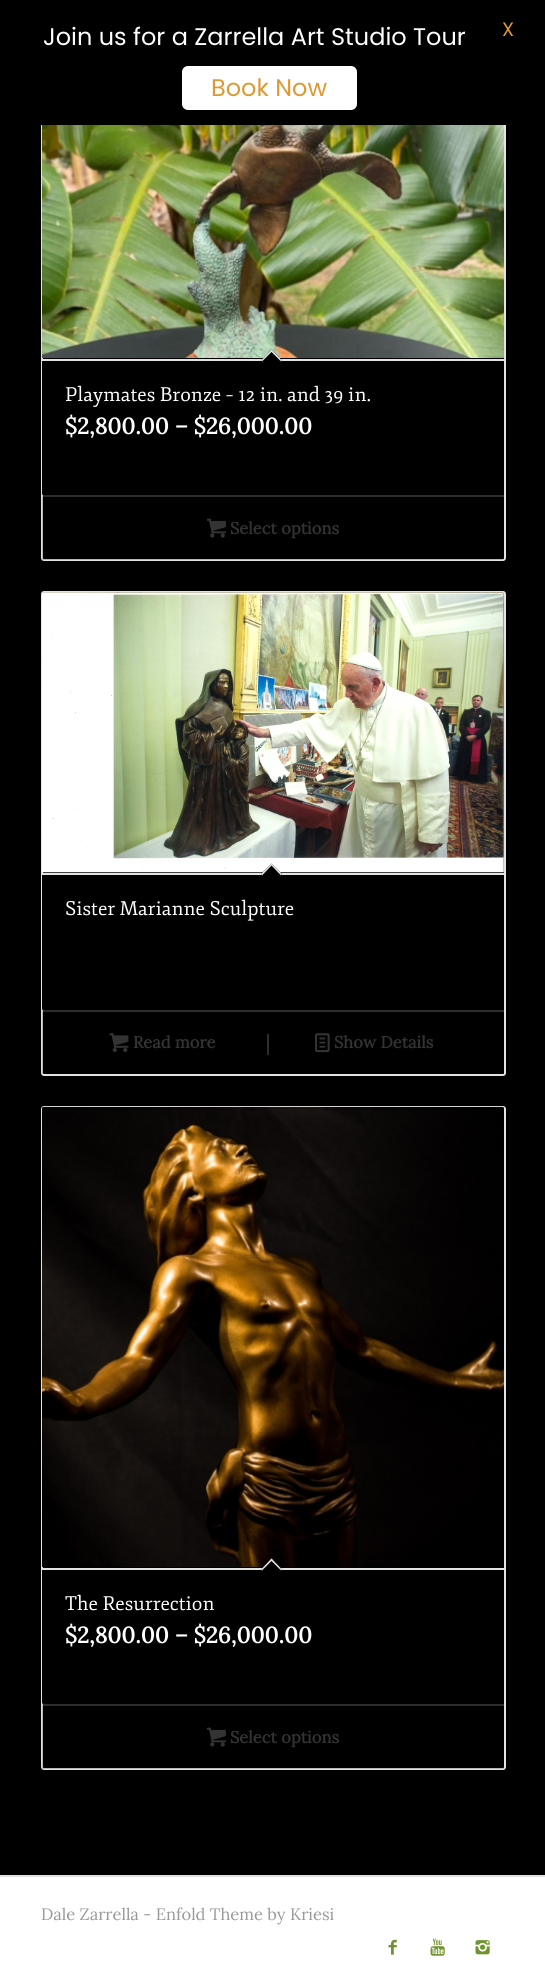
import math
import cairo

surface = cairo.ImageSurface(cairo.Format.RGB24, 545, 1984)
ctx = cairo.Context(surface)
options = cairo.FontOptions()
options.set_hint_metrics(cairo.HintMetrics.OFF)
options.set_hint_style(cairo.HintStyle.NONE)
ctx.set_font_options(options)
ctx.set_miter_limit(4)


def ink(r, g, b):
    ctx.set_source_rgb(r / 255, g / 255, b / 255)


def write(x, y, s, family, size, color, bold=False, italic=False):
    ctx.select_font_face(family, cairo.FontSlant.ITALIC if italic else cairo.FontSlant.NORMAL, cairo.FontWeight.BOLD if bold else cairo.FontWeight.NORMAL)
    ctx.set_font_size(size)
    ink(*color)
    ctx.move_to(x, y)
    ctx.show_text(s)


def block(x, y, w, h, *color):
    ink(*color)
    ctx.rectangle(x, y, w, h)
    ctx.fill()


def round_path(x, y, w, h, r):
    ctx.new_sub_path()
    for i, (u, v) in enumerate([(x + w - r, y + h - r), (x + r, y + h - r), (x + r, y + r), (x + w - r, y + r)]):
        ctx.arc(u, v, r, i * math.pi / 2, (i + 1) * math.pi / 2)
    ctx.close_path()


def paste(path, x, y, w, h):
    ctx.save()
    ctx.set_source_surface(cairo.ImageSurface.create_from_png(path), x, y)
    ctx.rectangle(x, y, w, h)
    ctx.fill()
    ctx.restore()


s1 = dict(family="Poppins", size=24, color=(255, 255, 255))
s2 = dict(family="Poppins", size=19.5, color=(221, 153, 51))
s3 = dict(family="Poppins", size=24, color=(221, 153, 51))
s4 = dict(family="Fjord", size=19.5, color=(255, 255, 255))
s5 = dict(family="Lora", size=22.5, color=(255, 255, 255), bold=True)
s6 = dict(family="Lora", size=16.5, color=(51, 51, 51), bold=True)
s7 = dict(family="Lora", size=16.5, color=(153, 153, 153))

ink(0, 0, 0)
ctx.paint()
round_path(42, -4, 463, 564, 2)
ink(227, 227, 227)
ctx.stroke()
block(41, 0, 465, 125, 0, 0, 0)
write(43, 45, "Join us for a Zarrella Art Studio Tour", **s1)
write(502, 36, "X", **s2)
ink(255, 255, 255)
round_path(182, 66, 175, 44, 6)
ctx.fill()
write(211, 96, "Book Now", **s3)
paste("pic1.png", 42, 125, 462, 233)
ink(0, 0, 0)
ctx.new_path()
ctx.move_to(42, 359)
ctx.line_to(504, 359)
ctx.line_to(504, 493.5)
ctx.curve_to(504, 494.5, 503.5, 495, 502.5, 495)
ctx.line_to(43.5, 495)
ctx.curve_to(42.5, 495, 42, 494.5, 42, 493.5)
ctx.close_path()
ctx.fill()
block(42, 359, 462, 2, 227, 227, 227)
ink(0, 0, 0)
ctx.new_path()
ctx.move_to(271.5, 349.5)
ctx.line_to(282, 360.5)
ctx.line_to(271.5, 371)
ctx.line_to(261, 360.5)
ctx.close_path()
ctx.fill()
ink(227, 227, 227)
ctx.new_path()
ctx.move_to(271.5, 349.5)
ctx.line_to(282, 360.5)
ctx.line_to(281, 361.5)
ctx.line_to(270.5, 351)
ctx.close_path()
ctx.fill()
ctx.new_path()
ctx.move_to(271.5, 349.5)
ctx.line_to(272.5, 351)
ctx.line_to(262, 361.5)
ctx.line_to(261, 360.5)
ctx.close_path()
ctx.fill()
write(65, 401, "Playmates Bronze – 12 in. and 39 in.", **s4)
write(65, 434, "$2,800.00 – $26,000.00", **s5)
ctx.set_source_rgba(0, 0, 0, 0.2)
ctx.new_path()
ctx.move_to(42, 495)
ctx.line_to(504, 495)
ctx.line_to(504, 558.5)
ctx.curve_to(504, 559.5, 503.5, 560, 502.5, 560)
ctx.line_to(43.5, 560)
ctx.curve_to(42.5, 560, 42, 559.5, 42, 558.5)
ctx.close_path()
ctx.fill()
ctx.set_source_rgba(0.89, 0.89, 0.89, 0.2)
ctx.rectangle(42, 495, 462, 2)
ctx.fill()
paste("pic2.png", 207, 518, 19, 20)
write(230, 534, "Select options", **s6)
round_path(42, 592, 463, 483, 2)
ink(227, 227, 227)
ctx.stroke()
paste("pic3.png", 42, 592, 462, 281)
ink(0, 0, 0)
ctx.new_path()
ctx.move_to(42, 873)
ctx.line_to(504, 873)
ctx.line_to(504, 1008.5)
ctx.curve_to(504, 1009.5, 503.5, 1010, 502.5, 1010)
ctx.line_to(43.5, 1010)
ctx.curve_to(42.5, 1010, 42, 1009.5, 42, 1008.5)
ctx.close_path()
ctx.fill()
block(42, 873, 462, 2, 227, 227, 227)
ink(0, 0, 0)
ctx.new_path()
ctx.move_to(271.5, 863.5)
ctx.line_to(282, 874)
ctx.line_to(271.5, 885)
ctx.line_to(261, 874)
ctx.close_path()
ctx.fill()
ink(227, 227, 227)
ctx.new_path()
ctx.move_to(271.5, 863.5)
ctx.line_to(282, 874)
ctx.line_to(281, 875.5)
ctx.line_to(270.5, 864.5)
ctx.close_path()
ctx.fill()
ctx.new_path()
ctx.move_to(271.5, 863.5)
ctx.line_to(272.5, 864.5)
ctx.line_to(262, 875.5)
ctx.line_to(261, 874)
ctx.close_path()
ctx.fill()
write(65, 915, "Sister Marianne Sculpture", **s4)
ctx.set_source_rgba(0, 0, 0, 0.2)
ctx.new_path()
ctx.move_to(42, 1010)
ctx.line_to(504, 1010)
ctx.line_to(504, 1072.5)
ctx.curve_to(504, 1073.5, 503.5, 1074, 502.5, 1074)
ctx.line_to(43.5, 1074)
ctx.curve_to(42.5, 1074, 42, 1073.5, 42, 1072.5)
ctx.close_path()
ctx.fill()
ctx.set_source_rgba(0.89, 0.89, 0.89, 0.2)
ctx.rectangle(42, 1010, 462, 2)
ctx.fill()
paste("pic4.png", 109, 1033, 20, 19)
write(133, 1048, "Read more", **s6)
block(267, 1034, 2, 21, 45, 45, 45)
paste("pic5.png", 315, 1033, 15, 20)
write(334, 1048, "Show Details", **s6)
round_path(42, 1107, 463, 662, 2)
ink(227, 227, 227)
ctx.stroke()
paste("pic6.png", 42, 1106, 462, 461)
ink(0, 0, 0)
ctx.new_path()
ctx.move_to(42, 1568)
ctx.line_to(504, 1568)
ctx.line_to(504, 1702.5)
ctx.curve_to(504, 1703.5, 503.5, 1704, 502.5, 1704)
ctx.line_to(43.5, 1704)
ctx.curve_to(42.5, 1704, 42, 1703.5, 42, 1702.5)
ctx.close_path()
ctx.fill()
block(42, 1568, 462, 2, 227, 227, 227)
ink(0, 0, 0)
ctx.new_path()
ctx.move_to(271.5, 1558.5)
ctx.line_to(282, 1569.5)
ctx.line_to(271.5, 1580)
ctx.line_to(261, 1569.5)
ctx.close_path()
ctx.fill()
ink(227, 227, 227)
ctx.new_path()
ctx.move_to(271.5, 1558.5)
ctx.line_to(282, 1569.5)
ctx.line_to(281, 1570.5)
ctx.line_to(270.5, 1560)
ctx.close_path()
ctx.fill()
ctx.new_path()
ctx.move_to(271.5, 1558.5)
ctx.line_to(272.5, 1560)
ctx.line_to(262, 1570.5)
ctx.line_to(261, 1569.5)
ctx.close_path()
ctx.fill()
write(65, 1610, "The Resurrection", **s4)
write(65, 1643, "$2,800.00 – $26,000.00", **s5)
ctx.set_source_rgba(0, 0, 0, 0.2)
ctx.new_path()
ctx.move_to(42, 1704)
ctx.line_to(504, 1704)
ctx.line_to(504, 1767.5)
ctx.curve_to(504, 1768.5, 503.5, 1769, 502.5, 1769)
ctx.line_to(43.5, 1769)
ctx.curve_to(42.5, 1769, 42, 1768.5, 42, 1767.5)
ctx.close_path()
ctx.fill()
ctx.set_source_rgba(0.89, 0.89, 0.89, 0.2)
ctx.rectangle(42, 1704, 462, 2)
ctx.fill()
paste("pic2.png", 207, 1727, 19, 20)
write(230, 1743, "Select options", **s6)
block(0, 1877, 545, 107, 255, 255, 255)
block(0, 1875, 545, 2, 225, 225, 225)
write(41, 1920, "Dale Zarrella - Enfold Theme by Kriesi", **s7)
paste("pic7.png", 388, 1939, 9, 16)
paste("pic8.png", 430, 1938, 15, 18)
paste("pic9.png", 475, 1940, 15, 15)
surface.write_to_png("screenshot.png")
